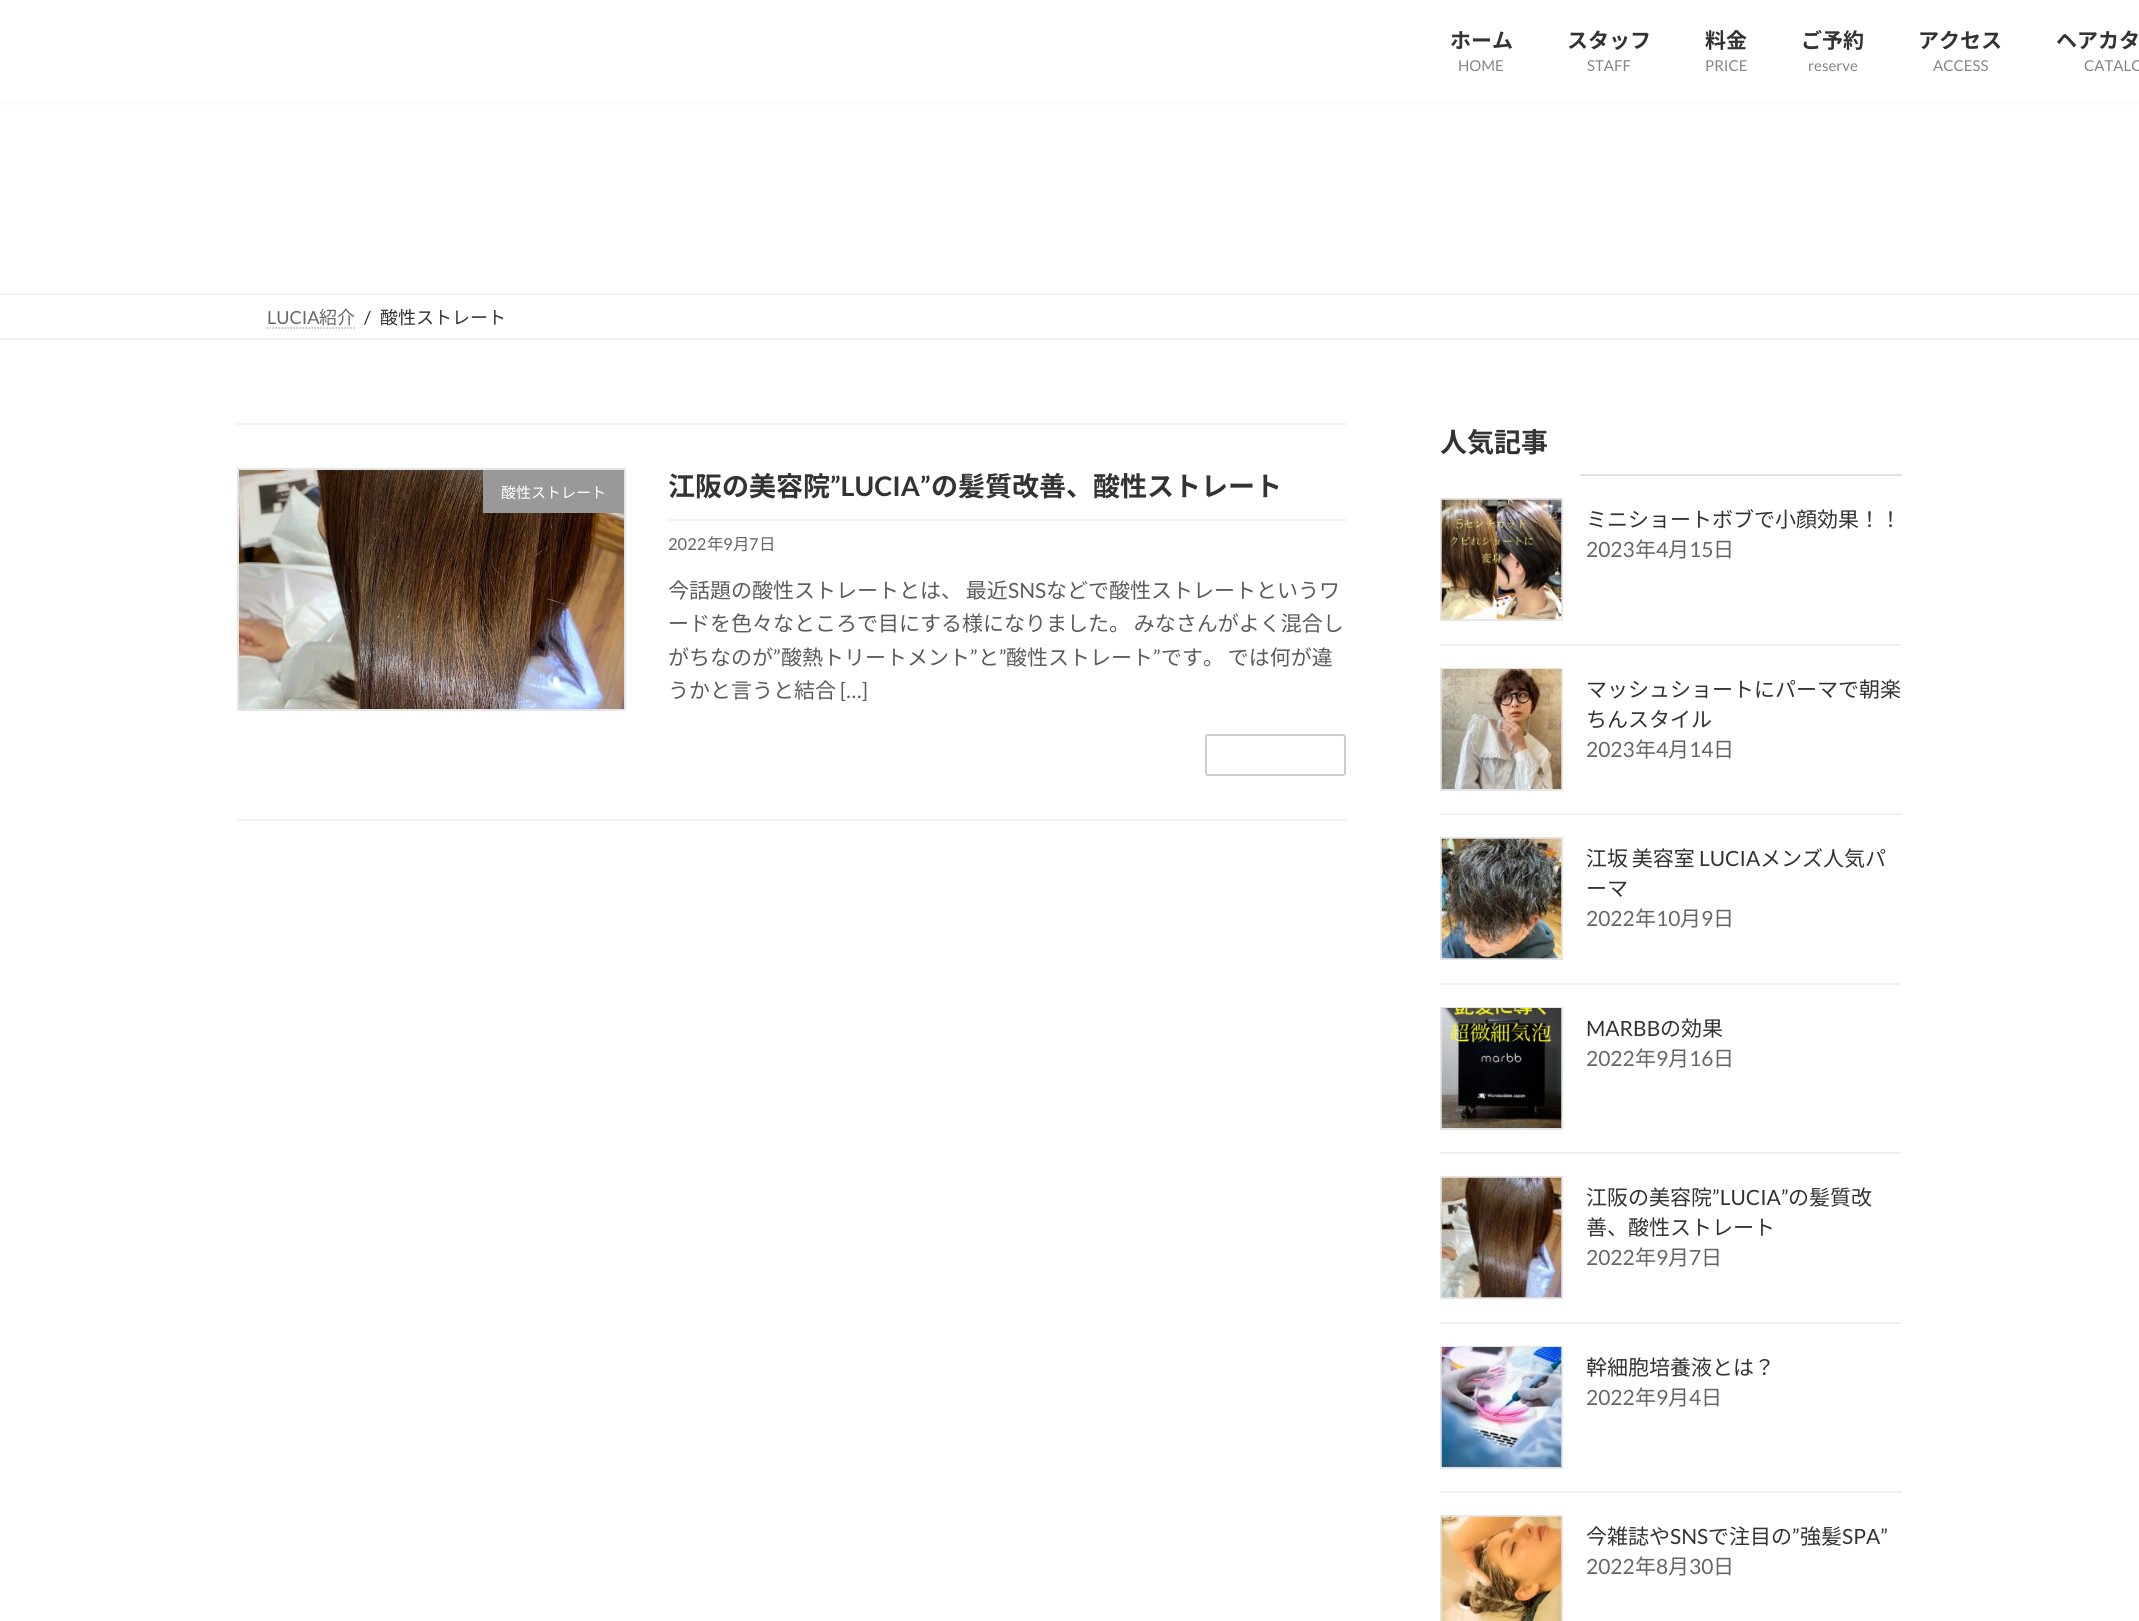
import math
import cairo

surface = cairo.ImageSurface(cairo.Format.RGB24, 2139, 1621)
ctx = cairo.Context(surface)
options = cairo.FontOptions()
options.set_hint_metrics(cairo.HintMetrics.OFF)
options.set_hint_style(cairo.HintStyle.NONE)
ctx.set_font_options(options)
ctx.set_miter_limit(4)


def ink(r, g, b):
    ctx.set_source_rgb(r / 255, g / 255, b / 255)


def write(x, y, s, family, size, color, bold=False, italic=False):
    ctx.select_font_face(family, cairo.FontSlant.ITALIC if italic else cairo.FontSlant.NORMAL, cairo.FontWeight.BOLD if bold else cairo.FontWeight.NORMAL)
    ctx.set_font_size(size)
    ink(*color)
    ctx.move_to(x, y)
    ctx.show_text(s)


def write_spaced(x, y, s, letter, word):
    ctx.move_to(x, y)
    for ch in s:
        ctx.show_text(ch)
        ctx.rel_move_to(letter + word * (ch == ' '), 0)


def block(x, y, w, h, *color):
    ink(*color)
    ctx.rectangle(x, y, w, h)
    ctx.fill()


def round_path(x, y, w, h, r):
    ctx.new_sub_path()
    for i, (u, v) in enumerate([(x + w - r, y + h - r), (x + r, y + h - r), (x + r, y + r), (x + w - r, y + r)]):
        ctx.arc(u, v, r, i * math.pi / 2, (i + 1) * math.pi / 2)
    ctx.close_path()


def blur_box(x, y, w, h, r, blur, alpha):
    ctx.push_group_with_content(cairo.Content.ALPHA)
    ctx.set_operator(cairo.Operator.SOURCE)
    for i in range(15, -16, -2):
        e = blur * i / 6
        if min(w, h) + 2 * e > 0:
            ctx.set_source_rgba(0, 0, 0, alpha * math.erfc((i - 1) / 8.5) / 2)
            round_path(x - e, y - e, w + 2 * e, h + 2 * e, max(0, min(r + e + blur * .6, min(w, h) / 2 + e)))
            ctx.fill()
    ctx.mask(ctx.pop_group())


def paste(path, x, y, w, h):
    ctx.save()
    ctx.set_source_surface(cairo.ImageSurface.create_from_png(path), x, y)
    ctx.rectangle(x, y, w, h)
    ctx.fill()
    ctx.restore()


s1 = dict(family="Noto Sans JP", size=21, color=(51, 51, 51), bold=True)
s2 = dict(family="Lato", size=15, color=(133, 133, 133))
s3 = dict(family="Lato", size=18, color=(102, 102, 102))
s4 = dict(family="Noto Sans JP", size=18, color=(102, 102, 102))
s5 = dict(family="Lato", size=18, color=(51, 51, 51))
s6 = dict(family="Noto Sans JP", size=18, color=(51, 51, 51))
s7 = dict(family="Noto Sans JP", size=15, color=(255, 255, 255))
s8 = dict(family="Noto Sans JP", size=27, color=(51, 51, 51), bold=True)
s9 = dict(family="Lato", size=27, color=(51, 51, 51), bold=True)
s10 = dict(family="Lato", size=16.5, color=(102, 102, 102))
s11 = dict(family="Noto Sans JP", size=16.5, color=(102, 102, 102))
s12 = dict(family="Lato", size=21, color=(92, 92, 92))
s13 = dict(family="Noto Sans JP", size=21, color=(92, 92, 92))
s14 = dict(family="Noto Sans JP", size=21, color=(51, 51, 51))
s15 = dict(family="Lato", size=21, color=(102, 102, 102))
s16 = dict(family="Noto Sans JP", size=21, color=(102, 102, 102))
s17 = dict(family="Lato", size=21, color=(51, 51, 51))

ink(255, 255, 255)
ctx.paint()
ink(0, 0, 0)
blur_box(0, 2, 2139, 100, 0, 2, 0.05)
block(0, 0, 2139, 101, 255, 255, 255)
write(1450, 48, "ホーム", **s1)
write(1458, 71, "HOME", **s2)
write(1567, 48, "スタッフ", **s1)
write(1587, 71, "STAFF", **s2)
write(1705, 48, "料金", **s1)
write(1705, 71, "PRICE", **s2)
write(1801, 48, "ご予約", **s1)
write(1808, 71, "reserve", **s2)
write(1918, 48, "アクセス", **s1)
write(1933, 71, "ACCESS", **s2)
write(2056, 48, "ヘアカタ", **s1)
write(2084, 71, "CATALO", **s2)
block(0, 293, 2139, 2, 240, 240, 240)
block(0, 338, 2139, 2, 240, 240, 240)
write(267, 324, "LUCIA", **s3)
ctx.new_path()
ctx.move_to(266.5, 328)
ctx.line_to(355, 328)
ink(179, 179, 179)
ctx.set_line_width(1.5)
ctx.set_dash([1.5, 1.5])
ctx.stroke()
write(319, 324, "紹介", **s4)
write(364, 324, "/", **s5)
write(380, 324, "酸性ストレート", **s6)
block(237, 423, 1109, 2, 240, 240, 240)
block(237, 819, 1109, 2, 240, 240, 240)
paste("pic1.png", 239, 470, 385, 239)
ctx.rectangle(238, 469, 387, 241)
ink(229, 229, 229)
ctx.set_line_width(2)
ctx.set_dash([])
ctx.stroke()
block(483, 470, 141, 43, 153, 153, 153)
write(501, 498, "酸性ストレート", **s7)
block(669, 519, 677, 2, 240, 240, 240)
write(668, 496, "江阪の美容院", **s8)
write(830, 496, "”LUCIA”", **s9)
write(931, 496, "の髪質改善、酸性ストレート", **s8)
write(668, 550, "2022", **s10)
write(707, 550, "年", **s11)
write(723, 550, "9", **s10)
write(733, 550, "月", **s11)
write(749, 550, "7", **s10)
write(759, 550, "日", **s11)
ctx.set_font_size(21)
ink(92, 92, 92)
write_spaced(668, 598, "今話題の酸性ストレートとは、 最近", 0, -1)
write(1008, 598, "SNS", **s12)
write(1046, 598, "などで酸性ストレートというワ", **s13)
write_spaced(668, 631, "ードを色々なところで目にする様になりました。 みなさんがよく混合し", 0, -1)
write(668, 665, "がちなのが", **s13)
write(773, 665, "”", **s12)
write(781, 665, "酸熱トリートメント", **s13)
write(970, 665, "”", **s12)
write(978, 665, "と", **s13)
write(999, 665, "”", **s12)
write(1006, 665, "酸性ストレート", **s13)
write(1153, 665, "”", **s12)
ctx.select_font_face("Noto Sans JP")
write_spaced(1161, 665, "です。 では何が違", 0, -1)
write(668, 698, "うかと言うと結合", **s13)
write(840, 698, "[…]", **s12)
round_path(1206, 735, 139, 40, 2)
ink(204, 204, 204)
ctx.stroke()
block(1580, 474, 322, 2, 224, 224, 224)
write(1440, 452, "人気記事", **s8)
block(1440, 644, 462, 2, 240, 240, 240)
ctx.rectangle(1441, 499, 121, 121)
ink(229, 229, 229)
ctx.stroke()
paste("pic2.png", 1441, 499, 121, 121)
write(1586, 527, "ミニショートボブで小顔効果！！", **s14)
write(1586, 557, "2023", **s15)
write(1635, 557, "年", **s16)
write(1656, 557, "4", **s15)
write(1668, 557, "月", **s16)
write(1689, 557, "15", **s15)
write(1713, 557, "日", **s16)
block(1440, 813, 462, 2, 240, 240, 240)
ctx.rectangle(1441, 669, 121, 121)
ink(229, 229, 229)
ctx.stroke()
paste("pic3.png", 1441, 669, 121, 120)
write(1586, 697, "マッシュショートにパーマで朝楽", **s14)
write(1586, 727, "ちんスタイル", **s14)
write(1586, 757, "2023", **s15)
write(1635, 757, "年", **s16)
write(1656, 757, "4", **s15)
write(1668, 757, "月", **s16)
write(1689, 757, "14", **s15)
write(1713, 757, "日", **s16)
block(1440, 983, 462, 2, 240, 240, 240)
ctx.rectangle(1441, 838, 121, 121)
ink(229, 229, 229)
ctx.stroke()
paste("pic4.png", 1441, 838, 121, 121)
ink(51, 51, 51)
write_spaced(1586, 866, "江坂 美容室", 0, -1)
write(1699, 866, "LUCIA", **s17)
write(1760, 866, "メンズ人気パ", **s14)
write(1586, 896, "ーマ", **s14)
write(1586, 926, "2022", **s15)
write(1635, 926, "年", **s16)
write(1656, 926, "10", **s15)
write(1680, 926, "月", **s16)
write(1701, 926, "9", **s15)
write(1713, 926, "日", **s16)
block(1440, 1152, 462, 2, 240, 240, 240)
ctx.rectangle(1441, 1008, 121, 121)
ink(229, 229, 229)
ctx.stroke()
paste("pic5.png", 1441, 1008, 121, 120)
write(1586, 1036, "MARBB", **s17)
write(1660, 1036, "の効果", **s14)
write(1586, 1066, "2022", **s15)
write(1635, 1066, "年", **s16)
write(1656, 1066, "9", **s15)
write(1668, 1066, "月", **s16)
write(1689, 1066, "16", **s15)
write(1713, 1066, "日", **s16)
block(1440, 1322, 462, 2, 240, 240, 240)
ctx.rectangle(1441, 1177, 121, 121)
ink(229, 229, 229)
ctx.stroke()
paste("pic6.png", 1441, 1177, 121, 121)
write(1586, 1205, "江阪の美容院", **s14)
write(1712, 1205, "”LUCIA”", **s17)
write(1788, 1205, "の髪質改", **s14)
write(1586, 1235, "善、酸性ストレート", **s14)
write(1586, 1265, "2022", **s15)
write(1635, 1265, "年", **s16)
write(1656, 1265, "9", **s15)
write(1668, 1265, "月", **s16)
write(1689, 1265, "7", **s15)
write(1701, 1265, "日", **s16)
block(1440, 1491, 462, 2, 240, 240, 240)
ctx.rectangle(1441, 1347, 121, 121)
ink(229, 229, 229)
ctx.stroke()
paste("pic7.png", 1441, 1347, 121, 120)
write(1586, 1375, "幹細胞培養液とは？", **s14)
write(1586, 1405, "2022", **s15)
write(1635, 1405, "年", **s16)
write(1656, 1405, "9", **s15)
write(1668, 1405, "月", **s16)
write(1689, 1405, "4", **s15)
write(1701, 1405, "日", **s16)
ctx.rectangle(1441, 1516, 121, 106)
ink(229, 229, 229)
ctx.stroke()
paste("pic8.png", 1441, 1516, 121, 105)
write(1586, 1544, "今雑誌や", **s14)
write(1670, 1544, "SNS", **s17)
write(1708, 1544, "で注目の", **s14)
write(1792, 1544, "”", **s17)
write(1800, 1544, "強髪", **s14)
write(1842, 1544, "SPA”", **s17)
write(1586, 1574, "2022", **s15)
write(1635, 1574, "年", **s16)
write(1656, 1574, "8", **s15)
write(1668, 1574, "月", **s16)
write(1689, 1574, "30", **s15)
write(1713, 1574, "日", **s16)
surface.write_to_png("screenshot.png")
